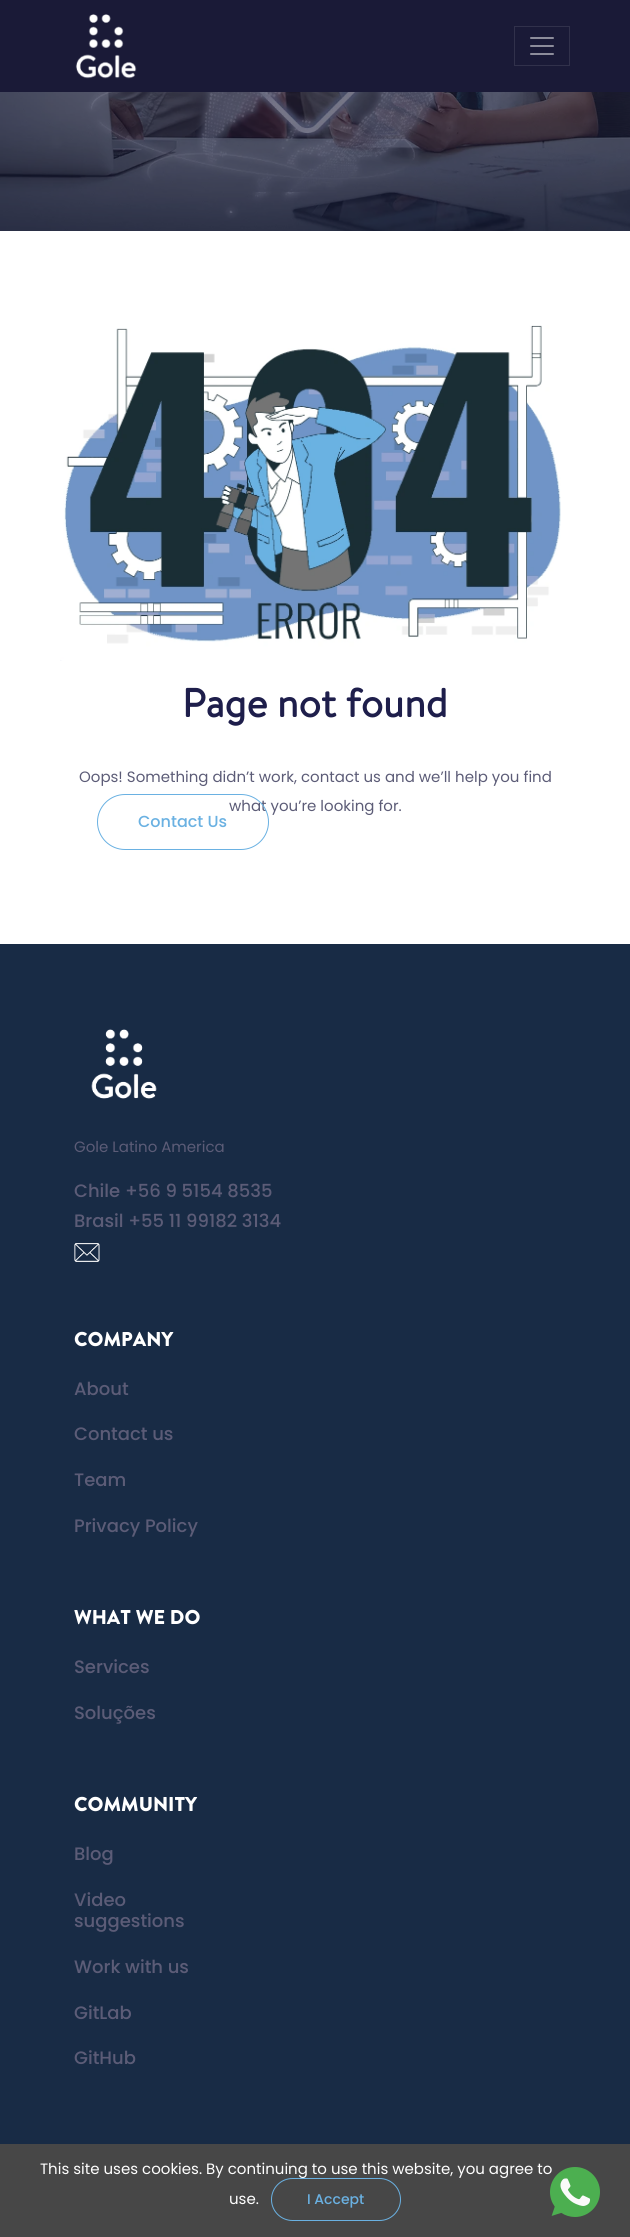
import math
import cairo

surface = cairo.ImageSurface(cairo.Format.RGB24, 630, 2237)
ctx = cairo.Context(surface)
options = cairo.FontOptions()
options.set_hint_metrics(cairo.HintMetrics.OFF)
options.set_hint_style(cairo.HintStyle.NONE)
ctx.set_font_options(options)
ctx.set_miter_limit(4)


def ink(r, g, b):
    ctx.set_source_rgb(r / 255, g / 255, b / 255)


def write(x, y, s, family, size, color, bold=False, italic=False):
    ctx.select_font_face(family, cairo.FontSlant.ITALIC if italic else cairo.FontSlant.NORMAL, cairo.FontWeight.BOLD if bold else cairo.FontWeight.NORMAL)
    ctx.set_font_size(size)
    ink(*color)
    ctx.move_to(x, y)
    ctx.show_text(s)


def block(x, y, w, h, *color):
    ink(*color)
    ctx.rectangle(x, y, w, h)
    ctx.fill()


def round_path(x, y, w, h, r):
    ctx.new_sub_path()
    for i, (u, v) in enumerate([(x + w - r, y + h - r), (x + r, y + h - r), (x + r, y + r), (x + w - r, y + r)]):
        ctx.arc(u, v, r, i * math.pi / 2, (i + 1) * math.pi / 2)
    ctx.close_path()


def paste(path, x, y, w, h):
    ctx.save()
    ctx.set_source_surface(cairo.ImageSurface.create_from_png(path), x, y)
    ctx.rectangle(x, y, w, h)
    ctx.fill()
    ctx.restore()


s1 = dict(family="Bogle", size=40, color=(30, 30, 75), bold=True)
s2 = dict(family="Poppins", size=15, color=(92, 92, 119))
s3 = dict(family="Poppins Medium", size=16, color=(106, 177, 226))
s4 = dict(family="Poppins Medium", size=18, color=(92, 92, 119))
s5 = dict(family="Bogle Black", size=20, color=(255, 255, 255))
s6 = dict(family="Poppins", size=15, color=(255, 255, 255))
s7 = dict(family="Poppins Medium", size=14, color=(106, 177, 226))

ink(255, 255, 255)
ctx.paint()
block(0, 0, 630, 92, 26, 26, 55)
paste("pic1.png", 75, 14, 62, 65)
ctx.rectangle(514.5, 26.5, 55, 39)
ink(49, 49, 75)
ctx.set_line_width(1)
ctx.stroke()
paste("pic2.png", 530, 37, 24, 18)
paste("pic3.png", 0, 92, 630, 139)
paste("pic4.png", 60, 325, 501, 336)
write(182, 717, "Page not found", **s1)
write(79, 782, "Oops! Something didn’t work, contact us and we’ll help you find", **s2)
write(229, 811, "what you’re looking for.", **s2)
round_path(97.5, 794.5, 171, 55, 27.5)
ink(106, 177, 226)
ctx.stroke()
write(138, 827, "Contact Us", **s3)
block(0, 944, 630, 1200, 24, 43, 69)
paste("pic5.png", 91, 1029, 66, 70)
write(74, 1152, "Gole Latino America", **s2)
write(74, 1197, "Chile +56 9 5154 8535", **s4)
write(74, 1227, "Brasil +55 11 99182 3134", **s4)
paste("pic6.png", 74, 1243, 26, 19)
write(74, 1346, "COMPANY", **s5)
write(74, 1395, "About", **s4)
write(74, 1440, "Contact us", **s4)
write(74, 1486, "Team", **s4)
write(74, 1532, "Privacy Policy", **s4)
write(74, 1624, "WHAT WE DO", **s5)
write(74, 1673, "Services", **s4)
write(74, 1719, "Soluções", **s4)
write(74, 1811, "COMMUNITY", **s5)
write(74, 1860, "Blog", **s4)
write(74, 1906, "Video", **s4)
write(74, 1927, "suggestions", **s4)
write(74, 1973, "Work with us", **s4)
write(74, 2019, "GitLab", **s4)
write(74, 2064, "GitHub", **s4)
block(0, 2144, 630, 93, 71, 71, 71)
write(40, 2174, "This site uses cookies. By continuing to use this website, you agree to", **s6)
write(229, 2204, "use.", **s6)
round_path(271.5, 2178.5, 129, 42, 21)
ink(106, 177, 226)
ctx.stroke()
write(307, 2204, "I Accept", **s7)
paste("pic7.png", 550, 2167, 50, 50)
surface.write_to_png("screenshot.png")
